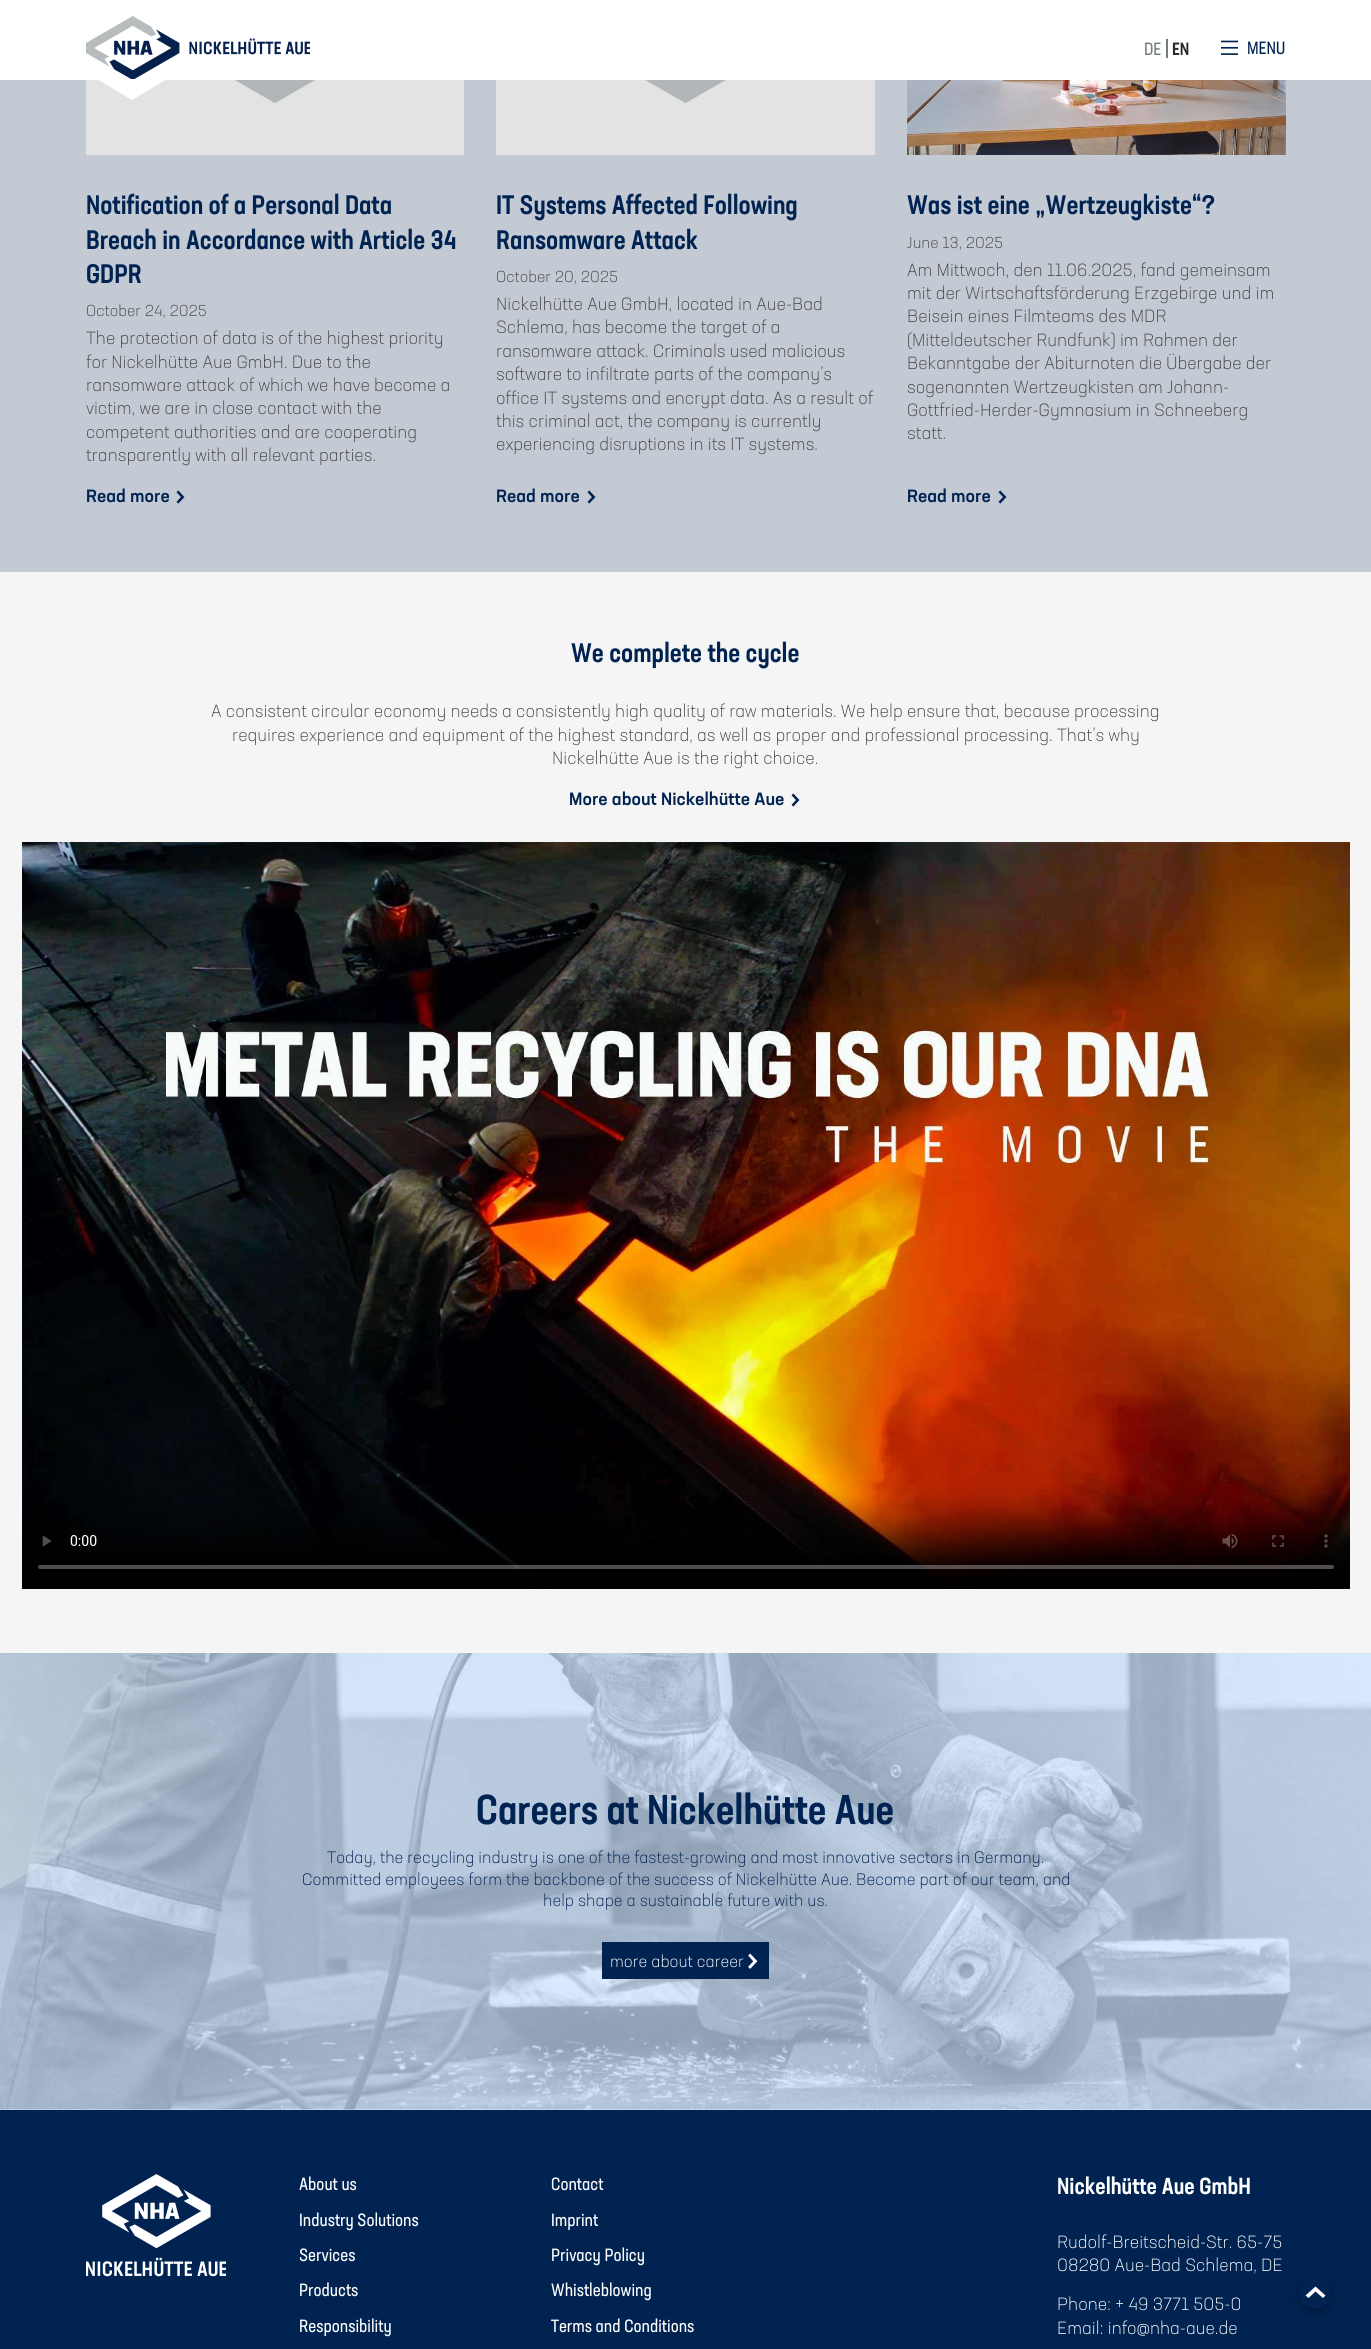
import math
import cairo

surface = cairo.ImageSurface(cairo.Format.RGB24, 1371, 2349)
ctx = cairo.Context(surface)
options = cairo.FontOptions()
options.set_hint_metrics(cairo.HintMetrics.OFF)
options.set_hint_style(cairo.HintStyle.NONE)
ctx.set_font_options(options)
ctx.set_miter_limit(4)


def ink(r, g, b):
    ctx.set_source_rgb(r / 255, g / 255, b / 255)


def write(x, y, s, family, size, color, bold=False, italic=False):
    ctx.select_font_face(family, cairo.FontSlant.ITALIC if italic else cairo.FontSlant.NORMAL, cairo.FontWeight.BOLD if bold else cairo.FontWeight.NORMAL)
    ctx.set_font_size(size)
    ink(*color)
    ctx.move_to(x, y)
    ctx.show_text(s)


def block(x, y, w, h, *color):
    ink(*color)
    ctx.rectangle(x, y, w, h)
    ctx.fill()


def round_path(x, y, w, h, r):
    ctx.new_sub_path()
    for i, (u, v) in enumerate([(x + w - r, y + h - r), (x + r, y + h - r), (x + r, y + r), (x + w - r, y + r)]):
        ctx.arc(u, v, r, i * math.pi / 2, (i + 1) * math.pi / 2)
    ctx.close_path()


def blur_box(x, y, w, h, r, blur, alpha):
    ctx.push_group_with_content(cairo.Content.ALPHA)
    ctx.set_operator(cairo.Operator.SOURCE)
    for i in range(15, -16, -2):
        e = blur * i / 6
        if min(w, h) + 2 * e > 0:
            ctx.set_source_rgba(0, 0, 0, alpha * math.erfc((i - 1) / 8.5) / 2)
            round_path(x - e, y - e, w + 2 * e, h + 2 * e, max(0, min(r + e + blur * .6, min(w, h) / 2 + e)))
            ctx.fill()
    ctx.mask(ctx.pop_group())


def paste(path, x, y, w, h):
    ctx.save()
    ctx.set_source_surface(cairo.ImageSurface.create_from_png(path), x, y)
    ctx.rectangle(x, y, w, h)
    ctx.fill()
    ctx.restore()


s1 = dict(family="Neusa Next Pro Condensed", size=17.6, color=(114, 125, 126))
s2 = dict(family="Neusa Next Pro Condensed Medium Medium", size=17.6, color=(39, 43, 43))
s3 = dict(family="Neusa Next Pro Condensed", size=17.6, color=(0, 35, 82))
s4 = dict(family="Neusa Next Pro Condensed Medium Medium", size=26.4, color=(0, 35, 82))
s5 = dict(family="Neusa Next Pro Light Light", size=15.75, color=(68, 68, 68))
s6 = dict(family="Neusa Next Pro Light Light", size=17.6, color=(68, 68, 68))
s7 = dict(family="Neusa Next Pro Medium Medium", size=17.6, color=(0, 35, 82))
s8 = dict(family="Neusa Next Pro Light Light", size=16.45, color=(0, 35, 82))
s9 = dict(family="Neusa Next Pro Condensed Medium Medium", size=41.1, color=(0, 35, 82))
s10 = dict(family="Neusa Next Pro Light Light", size=16.45, color=(255, 255, 255))
s11 = dict(family="Neusa Next Pro Condensed", size=17.6, color=(255, 255, 255))
s12 = dict(family="Neusa Next Pro Condensed Medium Medium", size=22.9, color=(255, 255, 255))
s13 = dict(family="Neusa Next Pro Light Light", size=17.6, color=(255, 255, 255))

ink(245, 245, 245)
ctx.paint()
block(0, 0, 1371, 80, 255, 255, 255)
paste("pic1.png", 86, 16, 224, 63)
block(0, 80, 1371, 492, 195, 202, 212)
paste("pic3.png", 86, 80, 378, 75)
ink(255, 255, 255)
ctx.new_path()
ctx.move_to(97, 79)
ctx.line_to(132, 100)
ctx.line_to(167, 79)
ctx.close_path()
ctx.fill()
write(1144, 55, "DE", **s1)
block(1166, 39, 2, 19, 114, 125, 126)
write(1172, 55, "EN", **s2)
paste("pic2.png", 1221, 40, 17, 15)
write(1247, 54, "MENU", **s3)
write(86, 214, "Notification of a Personal Data", **s4)
write(86, 249, "Breach in Accordance with Article 34", **s4)
write(86, 283, "GDPR", **s4)
write(86, 316, "October 24, 2025", **s5)
write(86, 344, "The protection of data is of the highest priority", **s6)
write(86, 368, "for Nickelhütte Aue GmbH. Due to the", **s6)
write(86, 391, "ransomware attack of which we have become a", **s6)
write(86, 414, "victim, we are in close contact with the", **s6)
write(86, 438, "competent authorities and are cooperating", **s6)
write(86, 461, "transparently with all relevant parties.", **s6)
write(86, 502, "Read more", **s7)
paste("pic4.png", 176, 490, 9, 14)
paste("pic5.png", 496, 80, 379, 75)
write(496, 214, "IT Systems Affected Following", **s4)
write(496, 249, "Ransomware Attack", **s4)
write(496, 282, "October 20, 2025", **s5)
write(496, 310, "Nickelhütte Aue GmbH, located in Aue-Bad", **s6)
write(496, 333, "Schlema, has become the target of a", **s6)
write(496, 357, "ransomware attack. Criminals used malicious", **s6)
write(496, 380, "software to infiltrate parts of the company’s", **s6)
write(496, 404, "office IT systems and encrypt data. As a result of", **s6)
write(496, 427, "this criminal act, the company is currently", **s6)
write(496, 450, "experiencing disruptions in its IT systems.", **s6)
write(496, 502, "Read more", **s7)
paste("pic4.png", 587, 490, 9, 14)
paste("pic6.png", 907, 80, 379, 75)
write(907, 214, "Was ist eine „Wertzeugkiste“?", **s4)
write(907, 248, "June 13, 2025", **s5)
write(907, 276, "Am Mittwoch, den 11.06.2025, fand gemeinsam", **s6)
write(907, 299, "mit der Wirtschaftsförderung Erzgebirge und im", **s6)
write(907, 322, "Beisein eines Filmteams des MDR", **s6)
write(907, 346, "(Mitteldeutscher Rundfunk) im Rahmen der", **s6)
write(907, 369, "Bekanntgabe der Abiturnoten die Übergabe der", **s6)
write(907, 393, "sogenannten Wertzeugkisten am Johann-", **s6)
write(907, 416, "Gottfried-Herder-Gymnasium in Schneeberg", **s6)
write(907, 439, "statt.", **s6)
write(907, 502, "Read more", **s7)
paste("pic4.png", 998, 490, 9, 14)
write(571, 662, "We complete the cycle", **s4)
write(211, 717, "A consistent circular economy needs a consistently high quality of raw materials. We help ensure that, because processing", **s6)
write(232, 741, "requires experience and equipment of the highest standard, as well as proper and professional processing. That’s why", **s6)
write(552, 764, "Nickelhütte Aue is the right choice.", **s6)
write(569, 805, "More about Nickelhütte Aue", **s7)
paste("pic7.png", 791, 793, 9, 14)
paste("pic8.png", 22, 842, 1328, 747)
paste("pic9.png", 0, 1653, 1371, 457)
write(327, 1863, "Today, the recycling industry is one of the fastest-growing and most innovative sectors in Germany.", **s8)
write(302, 1885, "Committed employees form the backbone of the success of Nickelhütte Aue. Become part of our team, and", **s8)
gradient = cairo.LinearGradient(-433, 2019, 206, 1653)
gradient.add_color_stop_rgba(0.5, 1, 1, 1, 0.3)
gradient.add_color_stop_rgba(1, 1, 1, 1, 0)
ctx.set_source(gradient)
ctx.new_path()
ctx.move_to(0, 1653)
ctx.line_to(411, 1653)
ctx.line_to(-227, 2019)
ctx.line_to(-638, 2019)
ctx.close_path()
ctx.fill()
write(476, 1824, "Careers at Nickelhütte Aue", **s9)
write(543, 1906, "help shape a sustainable future with us.", **s8)
block(602, 1942, 167, 37, 0, 35, 82)
write(610, 1967, "more about career", **s10)
paste("pic10.png", 748, 1953, 10, 16)
block(0, 2110, 1371, 239, 0, 35, 82)
paste("pic11.png", 86, 2174, 140, 103)
write(299, 2190, "About us", **s11)
write(299, 2226, "Industry Solutions", **s11)
write(299, 2261, "Services", **s11)
write(299, 2296, "Products", **s11)
write(299, 2332, "Responsibility", **s11)
write(551, 2190, "Contact", **s11)
write(551, 2226, "Imprint", **s11)
write(551, 2261, "Privacy Policy", **s11)
write(551, 2296, "Whistleblowing", **s11)
write(551, 2332, "Terms and Conditions", **s11)
write(1057, 2194, "Nickelhütte Aue GmbH", **s12)
write(1057, 2248, "Rudolf-Breitscheid-Str. 65-75", **s13)
write(1057, 2271, "08280 Aue-Bad Schlema, DE", **s13)
write(1057, 2310, "Phone: + 49 3771 505-0", **s13)
write(1057, 2334, "Email: info@nha-aue.de", **s13)
ink(0, 0, 0)
blur_box(1299, 2282, 32, 32, 16, 5.5, 0.24)
blur_box(1299, 2278, 32, 32, 16, 1.5, 0.16)
ink(0, 35, 82)
ctx.arc(1315, 2293, 16, 0, 2 * math.pi)
ctx.fill()
ink(255, 255, 255)
ctx.new_path()
ctx.move_to(1323, 2298)
ctx.line_to(1315.5, 2291.5)
ctx.line_to(1308.5, 2298)
ctx.line_to(1305.5, 2295.5)
ctx.line_to(1315.5, 2286.5)
ctx.line_to(1325.5, 2295.5)
ctx.close_path()
ctx.fill()
surface.write_to_png("screenshot.png")
